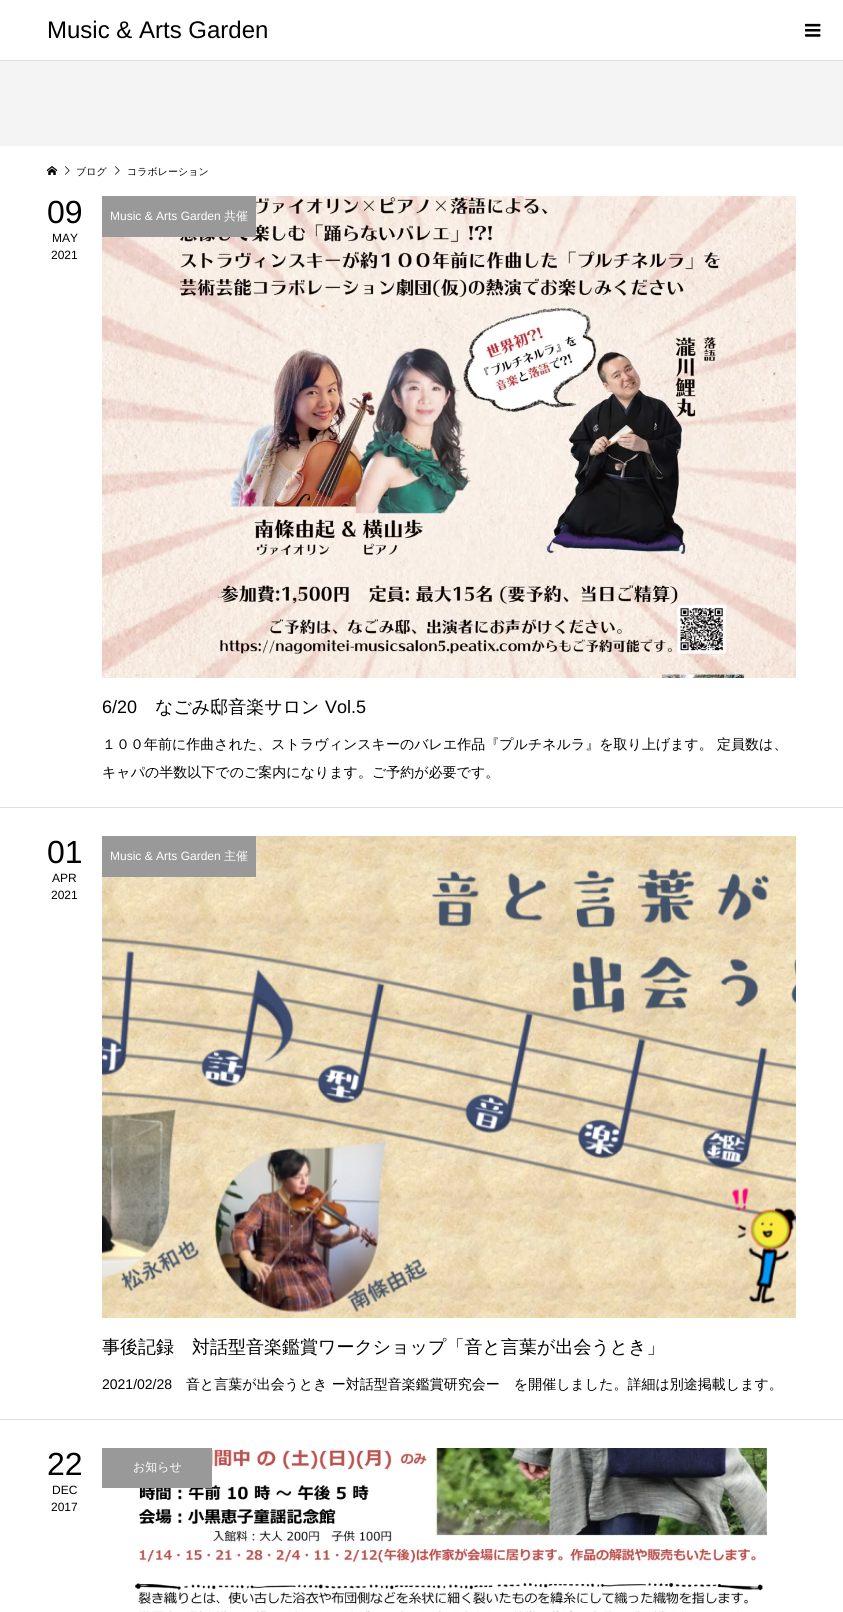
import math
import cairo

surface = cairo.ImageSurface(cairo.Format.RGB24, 843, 1612)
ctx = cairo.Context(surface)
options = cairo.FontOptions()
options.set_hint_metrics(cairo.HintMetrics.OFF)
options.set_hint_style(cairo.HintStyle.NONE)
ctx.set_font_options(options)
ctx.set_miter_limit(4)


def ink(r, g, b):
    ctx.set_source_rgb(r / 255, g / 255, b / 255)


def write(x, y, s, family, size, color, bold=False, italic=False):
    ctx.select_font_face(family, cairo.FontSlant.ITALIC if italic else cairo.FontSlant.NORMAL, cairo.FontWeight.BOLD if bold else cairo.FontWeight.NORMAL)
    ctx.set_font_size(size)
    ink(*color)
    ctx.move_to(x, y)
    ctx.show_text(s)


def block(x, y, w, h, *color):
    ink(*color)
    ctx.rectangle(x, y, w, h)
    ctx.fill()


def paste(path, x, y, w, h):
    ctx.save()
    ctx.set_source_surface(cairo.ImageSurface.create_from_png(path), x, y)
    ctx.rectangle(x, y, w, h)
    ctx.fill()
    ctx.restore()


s1 = dict(family="Liberation Sans", size=24, color=(0, 0, 0))
s2 = dict(family="WenQuanYi Zen Hei Medium", size=10, color=(0, 0, 0))
s3 = dict(family="Liberation Sans", size=32, color=(0, 0, 0))
s4 = dict(family="Liberation Sans", size=12, color=(0, 0, 0))
s5 = dict(family="Liberation Sans", size=12, color=(255, 255, 255))
s6 = dict(family="WenQuanYi Zen Hei Medium", size=12, color=(255, 255, 255))
s7 = dict(family="Liberation Sans", size=18, color=(0, 0, 0))
s8 = dict(family="WenQuanYi Zen Hei Medium", size=18, color=(0, 0, 0))
s9 = dict(family="WenQuanYi Zen Hei Medium", size=14, color=(0, 0, 0))
s10 = dict(family="Liberation Sans", size=14, color=(0, 0, 0))

ink(255, 255, 255)
ctx.paint()
write(47, 38, "Music & Arts Garden", **s1)
paste("pic1.png", 805, 23, 16, 14)
block(0, 61, 843, 85, 244, 244, 244)
block(0, 60, 843, 1, 221, 221, 221)
paste("pic2.png", 47, 166, 10, 9)
paste("pic3.png", 65, 166, 5, 9)
write(76, 175, "ブログ", **s2)
paste("pic3.png", 115, 166, 5, 9)
write(127, 175, "コラボレーション", **s2)
write(47, 223, "09", **s3)
write(52, 242, "MAY", **s4)
write(51, 259, "2021", **s4)
paste("pic4.png", 102, 196, 694, 482)
block(102, 196, 154, 41, 153, 153, 153)
write(110, 220, "Music & Arts Garden", **s5)
write(224, 220, "共催", **s6)
write(102, 713, "6/20", **s7)
write(155, 713, "なごみ邸音楽サロン", **s8)
write(325, 713, "Vol.5", **s7)
write(102, 749, "１００年前に作曲された、ストラヴィンスキーのバレエ作品『プルチネルラ』を取り上げます。 定員数は、", **s9)
write(102, 777, "キャパの半数以下でのご案内になります。ご予約が必要です。", **s9)
block(0, 807, 843, 1, 221, 221, 221)
write(47, 863, "01", **s3)
write(52, 882, "APR", **s4)
write(51, 899, "2021", **s4)
paste("pic5.png", 102, 836, 694, 482)
block(102, 836, 154, 41, 153, 153, 153)
write(110, 860, "Music & Arts Garden", **s5)
write(224, 860, "主催", **s6)
write(102, 1353, "事後記録　対話型音楽鑑賞ワークショップ「音と言葉が出会うとき」", **s8)
write(102, 1389, "2021/02/28", **s10)
write(186, 1389, "音と言葉が出会うとき ー対話型音楽鑑賞研究会ー　を開催しました。詳細は別途掲載します。", **s9)
block(0, 1419, 843, 1, 221, 221, 221)
write(47, 1475, "22", **s3)
write(52, 1494, "DEC", **s4)
write(51, 1511, "2017", **s4)
paste("pic6.png", 135, 1448, 633, 164)
block(102, 1448, 110, 40, 153, 153, 153)
write(133, 1471, "お知らせ", **s6)
surface.write_to_png("screenshot.png")
